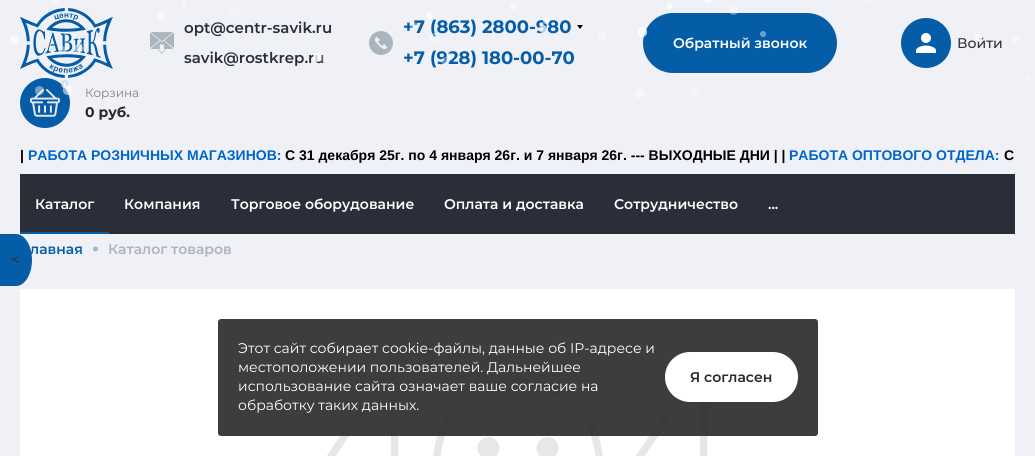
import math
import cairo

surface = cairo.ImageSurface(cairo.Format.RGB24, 1035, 456)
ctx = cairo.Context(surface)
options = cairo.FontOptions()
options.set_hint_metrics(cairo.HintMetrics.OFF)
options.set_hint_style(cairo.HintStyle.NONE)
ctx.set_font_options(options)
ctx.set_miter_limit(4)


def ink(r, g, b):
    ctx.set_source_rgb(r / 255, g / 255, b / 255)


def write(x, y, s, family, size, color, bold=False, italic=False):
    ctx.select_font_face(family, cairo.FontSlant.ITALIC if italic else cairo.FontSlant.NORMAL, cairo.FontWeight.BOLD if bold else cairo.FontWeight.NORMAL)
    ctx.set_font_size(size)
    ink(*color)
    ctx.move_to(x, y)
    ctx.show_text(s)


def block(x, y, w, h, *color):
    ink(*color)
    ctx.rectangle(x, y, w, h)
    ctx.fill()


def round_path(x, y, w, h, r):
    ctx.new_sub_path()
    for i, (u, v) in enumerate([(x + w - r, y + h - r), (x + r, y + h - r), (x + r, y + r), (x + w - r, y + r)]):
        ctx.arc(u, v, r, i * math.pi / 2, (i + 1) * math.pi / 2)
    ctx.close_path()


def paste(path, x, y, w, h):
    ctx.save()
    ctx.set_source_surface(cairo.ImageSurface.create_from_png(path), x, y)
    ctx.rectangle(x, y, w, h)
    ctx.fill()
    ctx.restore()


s1 = dict(family="Montserrat", size=18, color=(5, 92, 167), bold=True)
s2 = dict(family="Montserrat Medium", size=14, color=(51, 51, 51))
s3 = dict(family="Montserrat SemiBold", size=15, color=(42, 46, 57))
s4 = dict(family="Montserrat", size=11, color=(199, 216, 233), bold=True)
s5 = dict(family="Montserrat SemiBold", size=14, color=(255, 255, 255))
s6 = dict(family="Montserrat", size=12, color=(130, 130, 130))
s7 = dict(family="Montserrat", size=14, color=(40, 40, 40), bold=True)
s8 = dict(family="Liberation Sans", size=14, color=(0, 0, 0), bold=True)
s9 = dict(family="Liberation Sans", size=14, color=(0, 102, 204), bold=True)
s10 = dict(family="Montserrat SemiBold", size=14, color=(5, 92, 167))
s11 = dict(family="Montserrat SemiBold", size=14, color=(170, 181, 190))
s12 = dict(family="Montserrat", size=16, color=(42, 46, 57))
s13 = dict(family="Montserrat", size=14, color=(255, 255, 255))
s14 = dict(family="Montserrat SemiBold", size=14, color=(40, 40, 40))

ink(239, 241, 247)
ctx.paint()
ink(249, 250, 252)
ctx.arc(55, 0, 3, 0, 2 * math.pi)
ctx.fill()
ink(248, 249, 252)
ctx.arc(161, 16, 4, 0, 2 * math.pi)
ctx.fill()
ink(245, 246, 250)
round_path(181, 0, 5, 6, 2.5)
ctx.fill()
ink(243, 244, 249)
ctx.arc(235, 12, 5, 0, 2 * math.pi)
ctx.fill()
ink(251, 252, 253)
ctx.arc(429.5, 15.5, 3.5, 0, 2 * math.pi)
ctx.fill()
ink(246, 247, 250)
round_path(510, 2, 7, 8, 3.5)
ctx.fill()
ink(250, 251, 253)
round_path(667, 3, 5, 6, 2.5)
ctx.fill()
ink(249, 250, 252)
ctx.arc(708, 0, 4, 0, 2 * math.pi)
ctx.fill()
ink(5, 92, 167)
round_path(643, 13, 194, 60, 30)
ctx.fill()
ctx.set_source_rgba(1, 1, 1, 0.35)
ctx.arc(733.5, 10.5, 4.5, 0, 2 * math.pi)
ctx.fill()
ink(244, 245, 249)
ctx.arc(868, 0, 4, 0, 2 * math.pi)
ctx.fill()
write(403, 33, "+7 (863) 2800-980", **s1)
ctx.set_source_rgba(1, 1, 1, 0.67)
ctx.new_path()
ctx.arc(546.5, 20.5, 3.5, 0, 2 * math.pi)
ctx.fill()
ink(250, 250, 252)
ctx.arc(14.5, 39.5, 4.5, 0, 2 * math.pi)
ctx.fill()
paste("pic1.png", 20, 8, 93, 70)
ink(246, 247, 250)
round_path(95, 38, 8, 7, 3.5)
ctx.fill()
ctx.set_source_rgba(1, 1, 1, 0.32)
ctx.arc(413.5, 25.5, 3.5, 0, 2 * math.pi)
ctx.fill()
ctx.set_source_rgba(1, 1, 1, 0.38)
ctx.arc(434, 38, 5, 0, 2 * math.pi)
ctx.fill()
ctx.set_source_rgba(1, 1, 1, 0.71)
ctx.arc(543, 29, 4, 0, 2 * math.pi)
ctx.fill()
ink(244, 246, 250)
ctx.arc(602.5, 35.5, 4.5, 0, 2 * math.pi)
ctx.fill()
ctx.set_source_rgba(1, 1, 1, 0.78)
ctx.arc(642, 32, 5, 0, 2 * math.pi)
ctx.fill()
ink(108, 159, 203)
ctx.arc(763, 34, 3, 0, 2 * math.pi)
ctx.fill()
write(957, 48, "Войти", **s2)
ctx.set_source_rgba(1, 1, 1, 0.71)
round_path(975, 34, 7, 8, 3.5)
ctx.fill()
ink(245, 246, 250)
ctx.arc(1015.5, 39.5, 3.5, 0, 2 * math.pi)
ctx.fill()
ctx.set_source_rgba(1, 1, 1, 0.38)
ctx.arc(62, 50, 4, 0, 2 * math.pi)
ctx.fill()
ctx.set_source_rgba(1, 1, 1, 0.5)
ctx.arc(78.5, 48.5, 4.5, 0, 2 * math.pi)
ctx.fill()
write(184, 63, "savik@rostkrep.ru", **s3)
ctx.set_source_rgba(1, 1, 1, 0.27)
ctx.new_path()
ctx.arc(322.5, 57.5, 4.5, 0, 2 * math.pi)
ctx.fill()
ctx.set_source_rgba(1, 1, 1, 0.75)
round_path(313, 53, 8, 9, 4)
ctx.fill()
write(403, 64, "+7 (928) 180-00-70", **s1)
ctx.set_source_rgba(1, 1, 1, 0.31)
round_path(441, 57, 9, 8, 4)
ctx.fill()
ctx.set_source_rgba(1, 1, 1, 0.49)
round_path(446, 53, 8, 7, 3.5)
ctx.fill()
ink(244, 245, 249)
ctx.arc(1028, 77, 3, 0, 2 * math.pi)
ctx.fill()
ink(5, 92, 167)
ctx.arc(45, 103, 25, 0, 2 * math.pi)
ctx.fill()
paste("pic5.png", 30, 89, 30, 28)
ctx.set_source_rgba(1, 1, 1, 0.42)
ctx.arc(39.5, 90.5, 4.5, 0, 2 * math.pi)
ctx.fill()
write(61, 88, "0", **s4)
ctx.set_source_rgba(1, 1, 1, 0.54)
round_path(63, 85, 9, 10, 4.5)
ctx.fill()
ink(246, 247, 251)
ctx.arc(639.5, 93.5, 4.5, 0, 2 * math.pi)
ctx.fill()
ink(244, 245, 250)
ctx.arc(694.5, 90.5, 4.5, 0, 2 * math.pi)
ctx.fill()
paste("pic2.png", 150, 32, 24, 22)
write(184, 33, "opt@centr-savik.ru", **s3)
paste("pic3.png", 369, 31, 24, 24)
ink(0, 0, 0)
ctx.new_path()
ctx.move_to(577, 25)
ctx.line_to(583, 25)
ctx.line_to(580, 29)
ctx.close_path()
ctx.fill()
write(673, 48, "Обратный звонок", **s5)
ink(5, 92, 167)
ctx.new_path()
ctx.arc(926, 43, 25, 0, 2 * math.pi)
ctx.fill()
paste("pic4.png", 916, 33, 20, 20)
write(85, 97, "Корзина", **s6)
write(85, 117, "0 руб.", **s7)
write(20, 160, "|", **s8)
write(28, 160, "РАБОТА РОЗНИЧНЫХ МАГАЗИНОВ:", **s9)
write(285, 160, "C 31 декабря 25г. по 4 января 26г. и 7 января 26г. --- ВЫХОДНЫЕ ДНИ | |", **s8)
write(789, 160, "РАБОТА ОПТОВОГО ОТДЕЛА:", **s9)
write(1004, 160, "C", **s8)
block(20, 174, 995, 60, 42, 46, 57)
block(20, 232, 89, 2, 5, 92, 167)
write(35, 209, "Каталог", **s5)
write(124, 209, "Компания", **s5)
write(231, 209, "Торговое оборудование", **s5)
write(444, 209, "Оплата и доставка", **s5)
write(614, 209, "Сотрудничество", **s5)
write(768, 209, "...", **s5)
ink(170, 181, 190)
ctx.new_path()
ctx.arc(95.5, 249, 2.5, 0, 2 * math.pi)
ctx.fill()
write(30, 254, "лавная", **s10)
write(108, 254, "Каталог товаров", **s11)
block(20, 289, 995, 167, 255, 255, 255)
paste("pic6.png", 327, 363, 381, 93)
ink(5, 92, 167)
ctx.new_path()
ctx.move_to(0, 234)
ctx.line_to(16, 234)
ctx.curve_to(25, 234, 32, 246, 32, 260)
ctx.curve_to(32, 274, 25, 286, 16, 286)
ctx.line_to(0, 286)
ctx.close_path()
ctx.fill()
write(11, 265, "<", **s12)
ctx.set_source_rgba(0.157, 0.157, 0.157, 0.9)
round_path(218, 319, 600, 117, 3)
ctx.fill()
write(238, 353, "Этот сайт собирает cookie-файлы, данные об IP-адресе и", **s13)
write(238, 372, "местоположении пользователей. Дальнейшее", **s13)
write(238, 391, "использование сайта означает ваше согласие на", **s13)
write(238, 410, "обработку таких данных.", **s13)
round_path(665, 352, 133, 50, 25)
ctx.fill()
write(690, 382, "Я согласен", **s14)
surface.write_to_png("screenshot.png")
